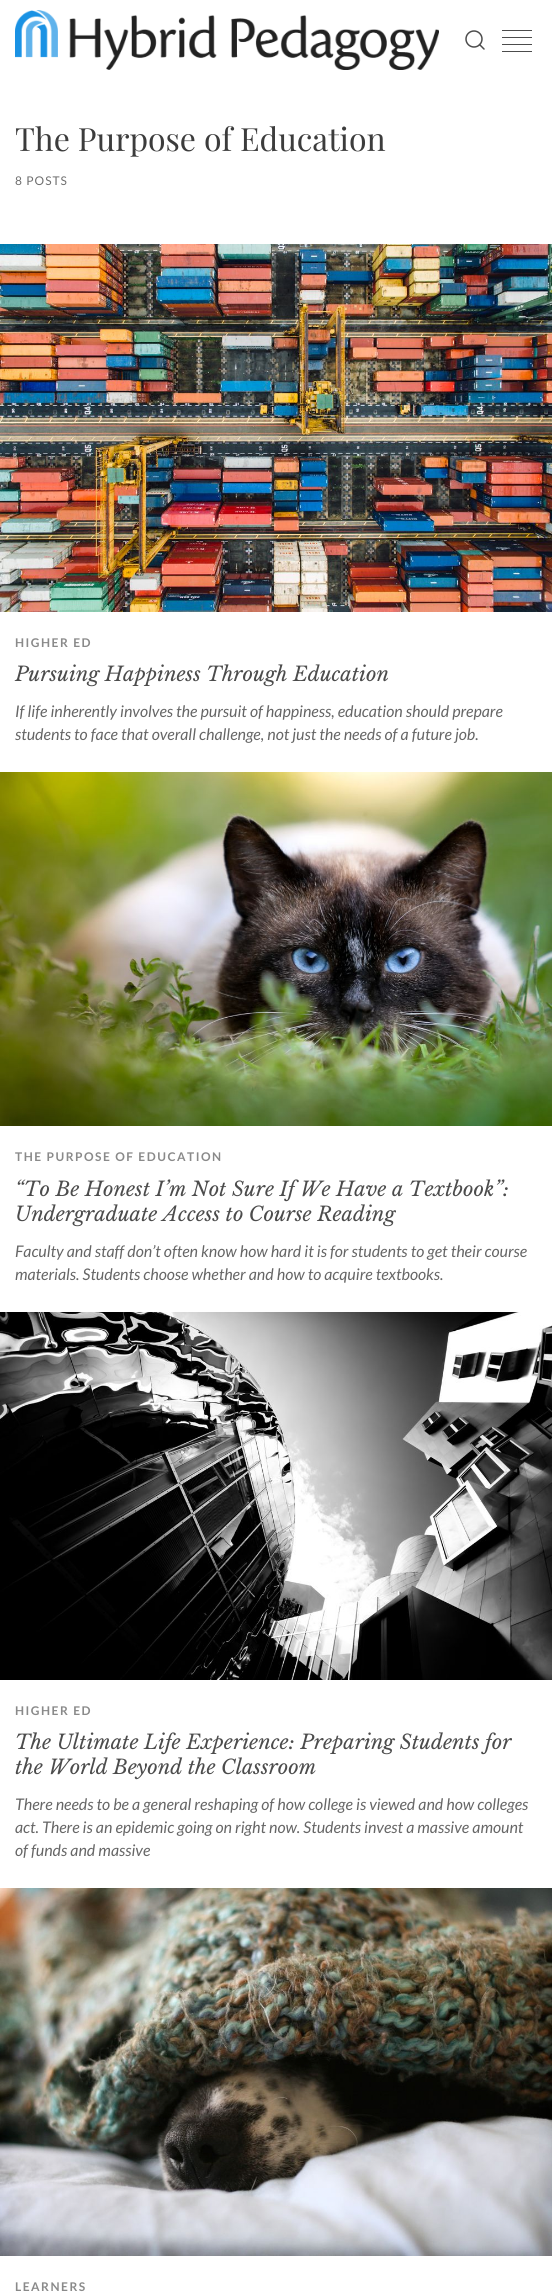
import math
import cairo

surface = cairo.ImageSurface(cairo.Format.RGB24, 552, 2293)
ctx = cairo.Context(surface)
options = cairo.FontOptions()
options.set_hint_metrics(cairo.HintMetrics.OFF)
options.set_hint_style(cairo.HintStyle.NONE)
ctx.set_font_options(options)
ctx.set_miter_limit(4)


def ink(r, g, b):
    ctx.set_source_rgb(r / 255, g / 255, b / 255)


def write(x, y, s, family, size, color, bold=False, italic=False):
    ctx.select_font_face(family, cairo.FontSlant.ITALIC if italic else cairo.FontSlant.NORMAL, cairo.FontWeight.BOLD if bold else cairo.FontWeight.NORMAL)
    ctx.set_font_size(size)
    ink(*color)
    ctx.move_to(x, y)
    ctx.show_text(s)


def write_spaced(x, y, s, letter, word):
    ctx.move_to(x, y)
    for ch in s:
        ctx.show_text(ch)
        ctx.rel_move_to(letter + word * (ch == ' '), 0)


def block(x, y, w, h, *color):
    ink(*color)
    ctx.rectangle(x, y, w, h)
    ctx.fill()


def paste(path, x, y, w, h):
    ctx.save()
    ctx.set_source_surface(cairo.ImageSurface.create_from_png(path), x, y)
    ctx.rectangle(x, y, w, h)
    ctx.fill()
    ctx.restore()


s1 = dict(family="Playfair Display", size=32, color=(60, 60, 60))
s2 = dict(family="Libre Baskerville", size=20, color=(76, 76, 76), italic=True)
s3 = dict(family="Lato", size=16, color=(102, 102, 102), italic=True)

ink(255, 255, 255)
ctx.paint()
paste("pic1.png", 15, 10, 424, 60)
ctx.arc(474, 39, 8, 0, 2 * math.pi)
ink(76, 76, 76)
ctx.set_line_width(1.5)
ctx.stroke()
ctx.new_path()
ctx.move_to(484, 49)
ctx.line_to(479.5, 44.5)
ctx.set_line_cap(cairo.LineCap.ROUND)
ctx.set_line_join(cairo.LineJoin.ROUND)
ctx.stroke()
block(502, 30, 30, 1, 76, 76, 76)
block(502, 37, 30, 1, 76, 76, 76)
block(502, 44, 30, 1, 76, 76, 76)
block(502, 51, 30, 1, 76, 76, 76)
write(15, 151, "The Purpose of Education", **s1)
ctx.select_font_face("Lato")
ctx.set_font_size(12)
ink(111, 111, 111)
write_spaced(15, 185, "8 POSTS", 1, 0)
paste("pic2.png", 0, 244, 552, 368)
ctx.select_font_face("Lato", cairo.FontSlant.NORMAL, cairo.FontWeight.BOLD)
ink(138, 138, 138)
write_spaced(15, 647, "HIGHER ED", 1.5, 0)
write(15, 681, "Pursuing Happiness Through Education", **s2)
write(15, 717, "If life inherently involves the pursuit of happiness, education should prepare", **s3)
write(15, 740, "students to face that overall challenge, not just the needs of a future job.", **s3)
paste("pic3.png", 0, 772, 552, 354)
ctx.select_font_face("Lato", cairo.FontSlant.NORMAL, cairo.FontWeight.BOLD)
ctx.set_font_size(12)
ink(138, 138, 138)
write_spaced(15, 1161, "THE PURPOSE OF EDUCATION", 1.5, 0)
write(15, 1196, "“To Be Honest I’m Not Sure If We Have a Textbook”:", **s2)
write(15, 1221, "Undergraduate Access to Course Reading", **s2)
write(15, 1257, "Faculty and staff don’t often know how hard it is for students to get their course", **s3)
write(15, 1280, "materials. Students choose whether and how to acquire textbooks.", **s3)
paste("pic4.png", 0, 1312, 552, 368)
ctx.select_font_face("Lato", cairo.FontSlant.NORMAL, cairo.FontWeight.BOLD)
ctx.set_font_size(12)
ink(138, 138, 138)
write_spaced(15, 1715, "HIGHER ED", 1.5, 0)
write(15, 1749, "The Ultimate Life Experience: Preparing Students for", **s2)
write(15, 1774, "the World Beyond the Classroom", **s2)
write(15, 1810, "There needs to be a general reshaping of how college is viewed and how colleges", **s3)
write(15, 1833, "act. There is an epidemic going on right now. Students invest a massive amount", **s3)
write(15, 1856, "of funds and massive", **s3)
paste("pic5.png", 0, 1888, 552, 368)
ctx.select_font_face("Lato", cairo.FontSlant.NORMAL, cairo.FontWeight.BOLD)
ctx.set_font_size(12)
ink(138, 138, 138)
write_spaced(15, 2291, "LEARNERS", 1.5, 0)
surface.write_to_png("screenshot.png")
